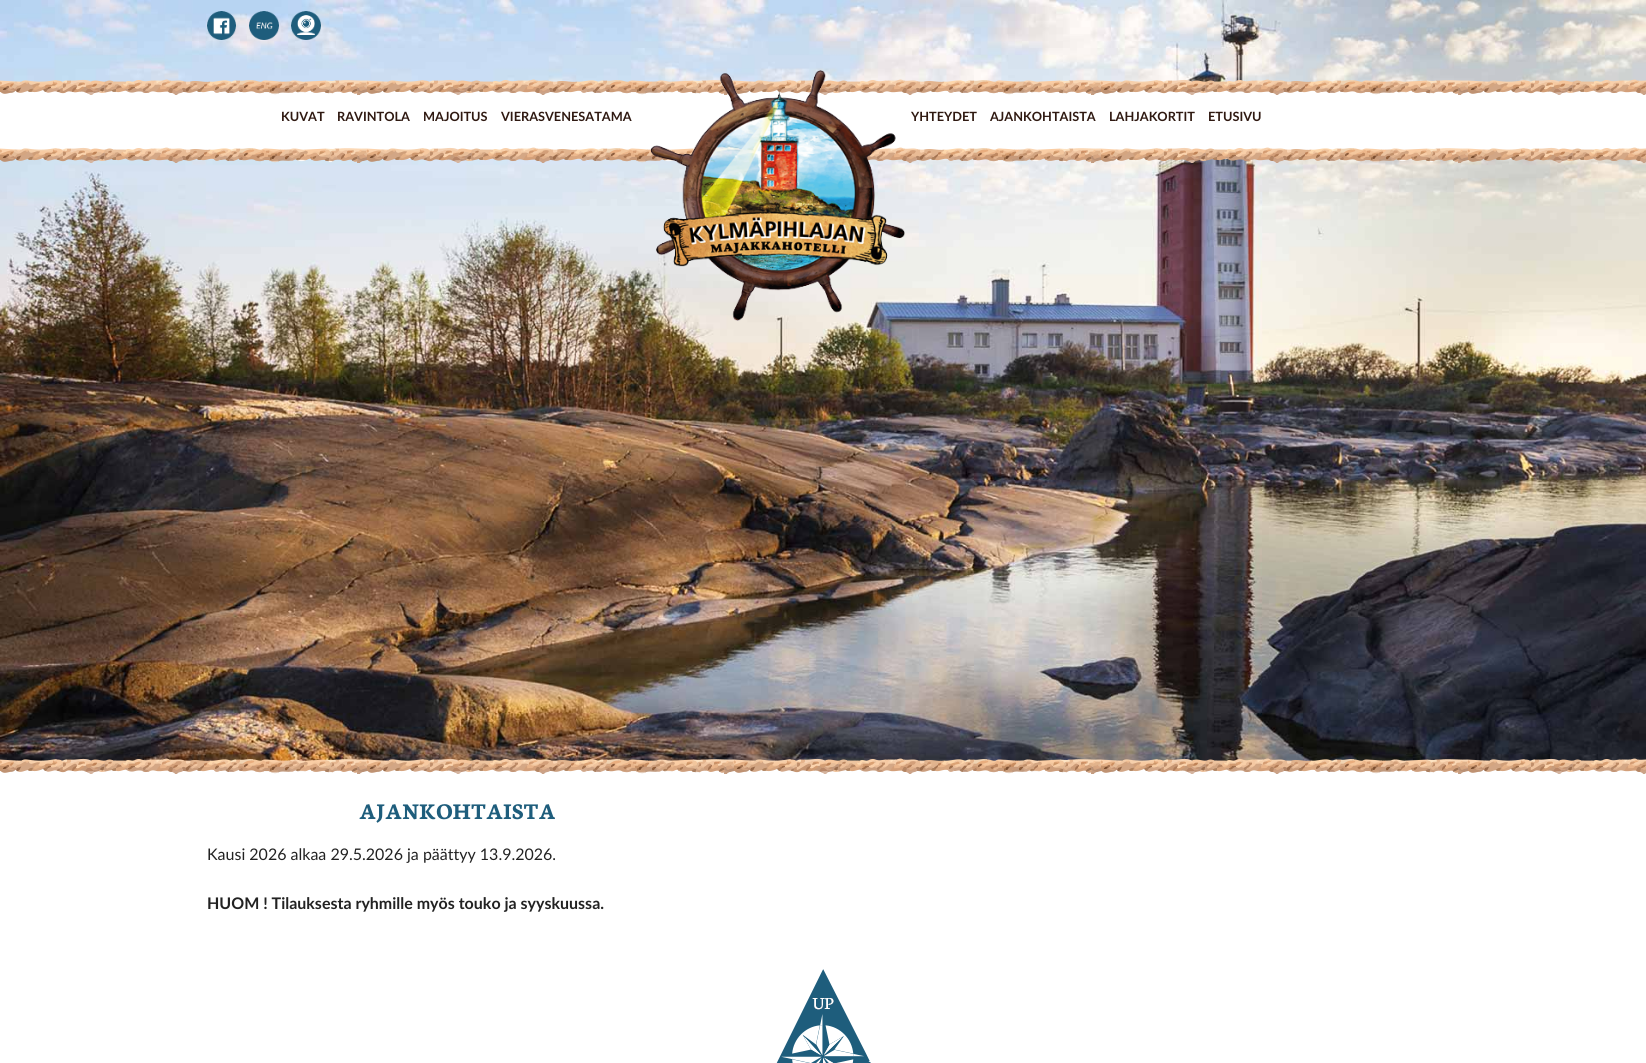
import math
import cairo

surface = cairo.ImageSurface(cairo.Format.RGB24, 1646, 1063)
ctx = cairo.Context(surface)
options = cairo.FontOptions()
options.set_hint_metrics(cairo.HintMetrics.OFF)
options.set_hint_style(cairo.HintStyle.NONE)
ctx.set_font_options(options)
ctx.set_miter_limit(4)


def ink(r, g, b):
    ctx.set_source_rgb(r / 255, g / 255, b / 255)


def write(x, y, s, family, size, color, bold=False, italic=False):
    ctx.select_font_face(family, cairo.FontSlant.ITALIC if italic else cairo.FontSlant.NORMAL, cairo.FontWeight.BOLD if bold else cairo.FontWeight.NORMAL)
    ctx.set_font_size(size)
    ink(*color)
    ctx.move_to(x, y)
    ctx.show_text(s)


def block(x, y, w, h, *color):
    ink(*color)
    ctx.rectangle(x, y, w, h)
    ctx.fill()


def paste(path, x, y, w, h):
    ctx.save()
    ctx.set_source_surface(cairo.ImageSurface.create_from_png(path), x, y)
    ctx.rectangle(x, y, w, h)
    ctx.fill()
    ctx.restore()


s1 = dict(family="Lato", size=12.75, color=(47, 25, 17), bold=True)
s2 = dict(family="Neuton", size=24, color=(30, 93, 124), bold=True)
s3 = dict(family="Lato", size=16, color=(34, 34, 34))
s4 = dict(family="Lato", size=16, color=(34, 34, 34), bold=True)

ink(255, 255, 255)
ctx.paint()
paste("pic1.png", 0, 0, 1646, 761)
paste("pic2.png", 207, 11, 29, 29)
paste("pic3.png", 249, 11, 30, 29)
paste("pic4.png", 291, 11, 30, 29)
block(0, 82, 1646, 77, 255, 255, 255)
paste("pic5.png", 0, 79, 1646, 16)
write(281, 121, "KUVAT", **s1)
write(337, 121, "RAVINTOLA", **s1)
write(423, 121, "MAJOITUS", **s1)
write(501, 121, "VIERASVENESATAMA", **s1)
paste("pic7.png", 0, 147, 1646, 16)
paste("pic6.png", 650, 70, 255, 251)
write(911, 121, "YHTEYDET", **s1)
write(990, 121, "AJANKOHTAISTA", **s1)
write(1109, 121, "LAHJAKORTIT", **s1)
write(1208, 121, "ETUSIVU", **s1)
paste("pic8.png", 0, 758, 1646, 16)
write(359, 819, "AJANKOHTAISTA", **s2)
write(207, 860, "Kausi 2026 alkaa 29.5.2026 ja päättyy 13.9.2026.", **s3)
write(207, 909, "HUOM ! Tilauksesta ryhmille myös touko ja syyskuussa.", **s4)
paste("pic9.png", 776, 969, 95, 94)
surface.write_to_png("screenshot.png")
